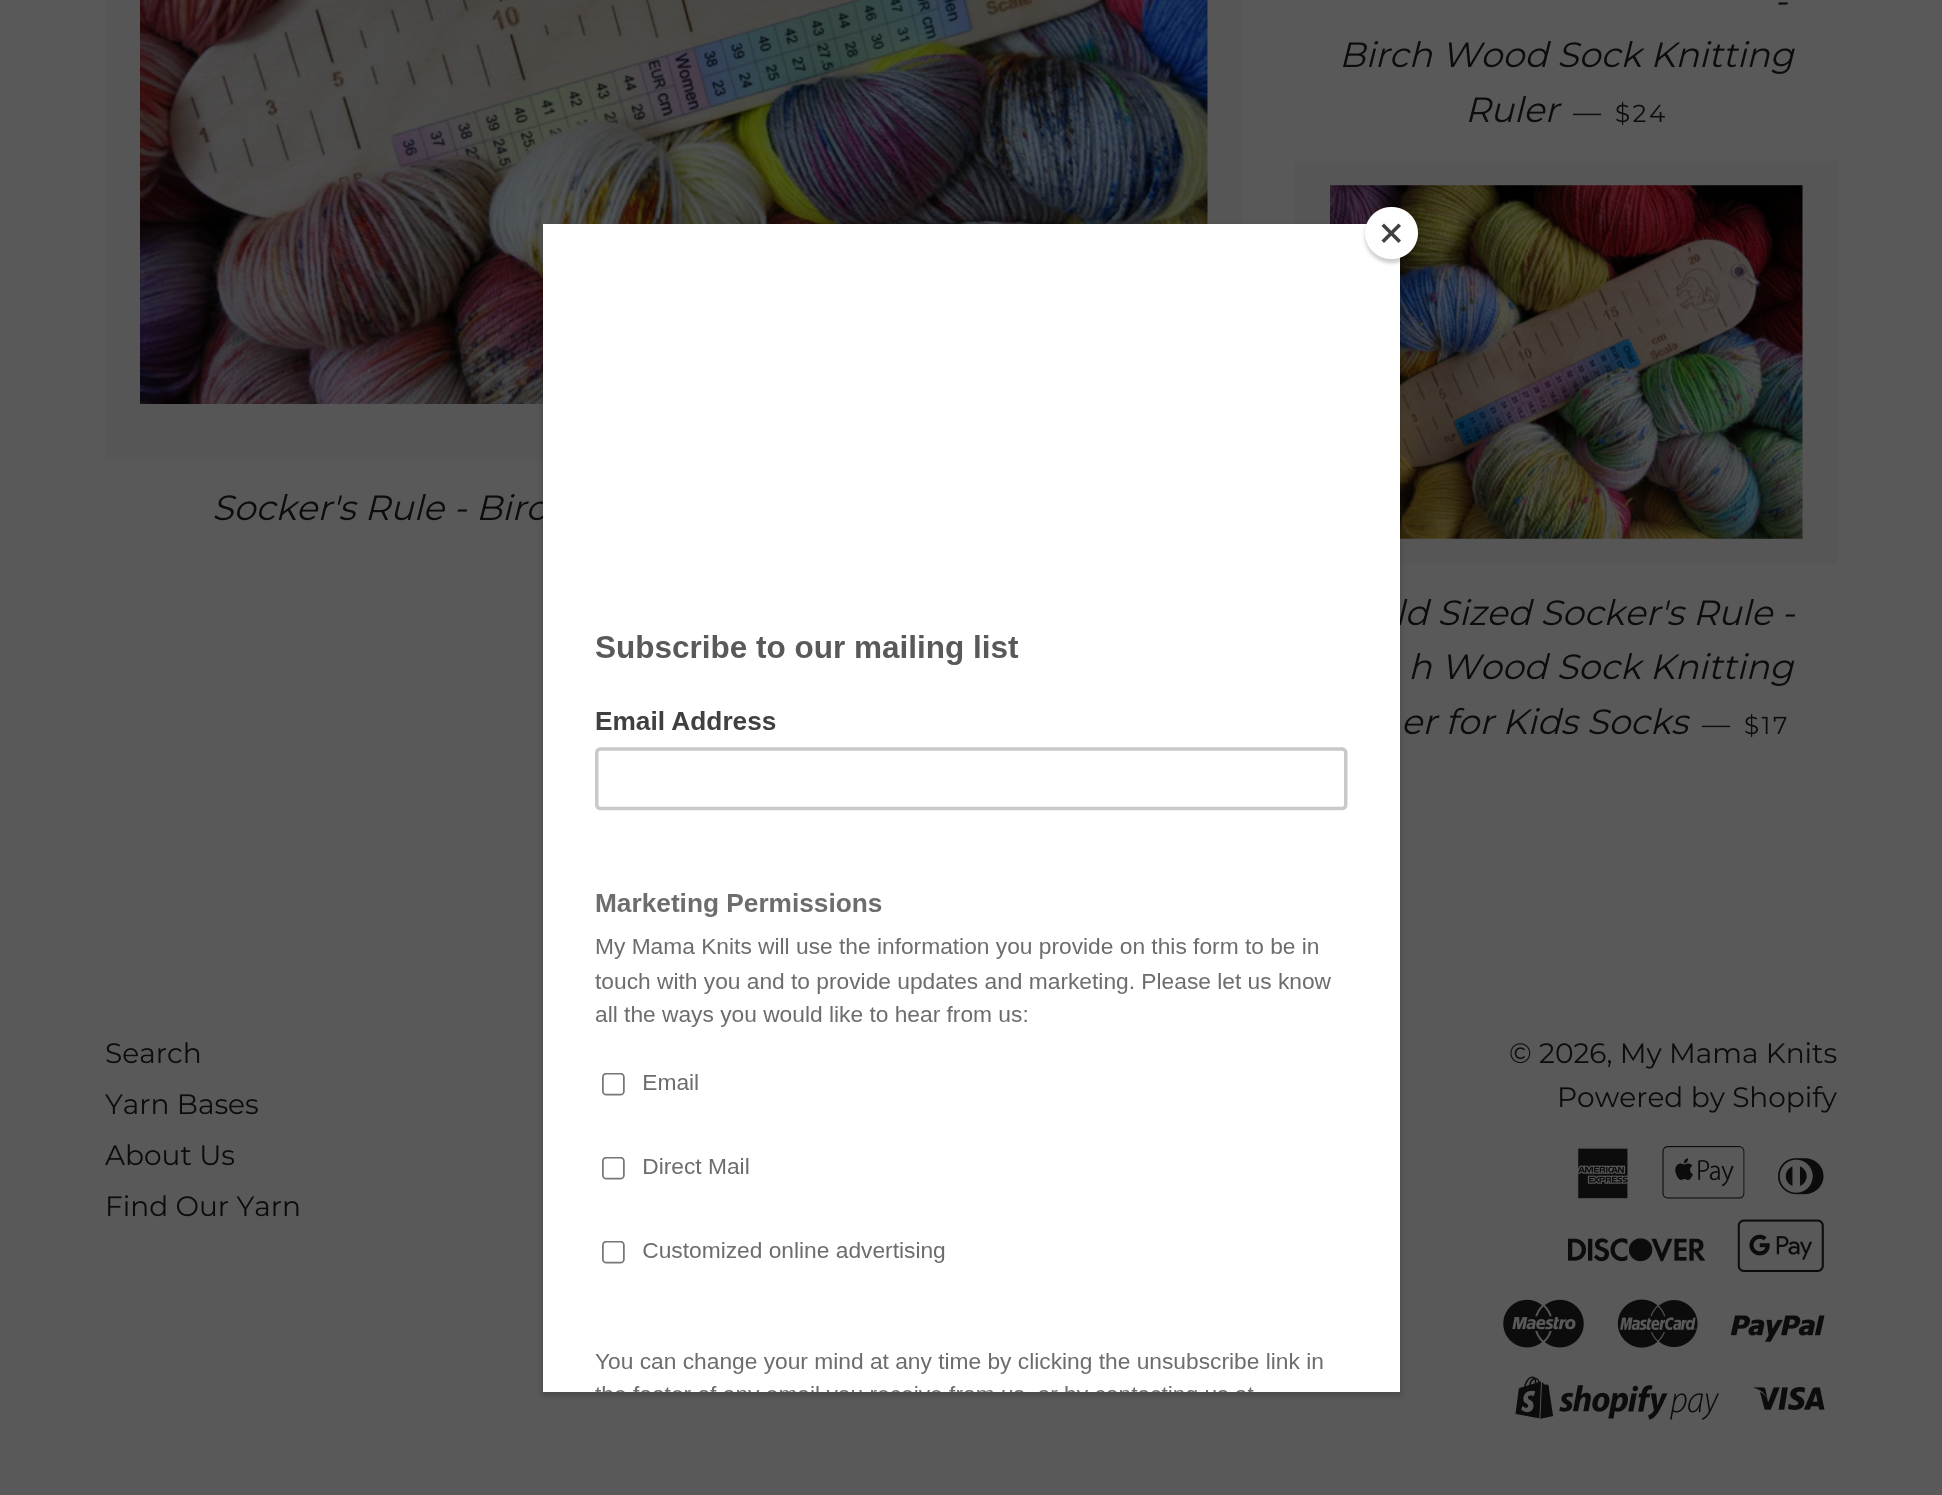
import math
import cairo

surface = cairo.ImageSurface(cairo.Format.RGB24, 1942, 1495)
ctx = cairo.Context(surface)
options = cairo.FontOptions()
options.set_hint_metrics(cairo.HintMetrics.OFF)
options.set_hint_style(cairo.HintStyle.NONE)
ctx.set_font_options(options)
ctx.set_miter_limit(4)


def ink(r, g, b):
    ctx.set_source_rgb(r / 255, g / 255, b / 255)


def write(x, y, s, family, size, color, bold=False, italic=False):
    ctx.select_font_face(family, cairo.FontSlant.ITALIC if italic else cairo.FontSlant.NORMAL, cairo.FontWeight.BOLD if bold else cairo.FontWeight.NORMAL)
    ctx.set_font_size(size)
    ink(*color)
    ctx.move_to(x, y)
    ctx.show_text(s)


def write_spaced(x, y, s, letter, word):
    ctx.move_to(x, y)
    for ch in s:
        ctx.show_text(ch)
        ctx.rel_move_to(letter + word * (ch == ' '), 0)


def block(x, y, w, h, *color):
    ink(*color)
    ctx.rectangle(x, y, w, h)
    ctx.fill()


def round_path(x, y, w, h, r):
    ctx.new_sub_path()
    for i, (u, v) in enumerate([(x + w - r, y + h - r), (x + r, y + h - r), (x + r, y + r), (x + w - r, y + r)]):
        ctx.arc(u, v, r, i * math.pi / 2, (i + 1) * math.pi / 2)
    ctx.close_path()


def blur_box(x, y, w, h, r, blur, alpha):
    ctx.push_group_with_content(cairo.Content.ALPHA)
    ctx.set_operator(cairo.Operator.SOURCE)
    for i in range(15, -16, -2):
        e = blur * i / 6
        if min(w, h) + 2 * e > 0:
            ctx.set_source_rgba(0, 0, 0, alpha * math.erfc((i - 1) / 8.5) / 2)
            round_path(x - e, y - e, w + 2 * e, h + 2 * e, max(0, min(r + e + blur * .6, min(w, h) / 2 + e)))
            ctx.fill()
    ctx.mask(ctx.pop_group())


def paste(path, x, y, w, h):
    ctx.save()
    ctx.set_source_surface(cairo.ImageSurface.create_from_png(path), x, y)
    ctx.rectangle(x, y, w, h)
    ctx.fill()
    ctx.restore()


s1 = dict(family="Montserrat Thin", size=35, color=(12, 12, 12), italic=True)
s2 = dict(family="Montserrat Thin", size=28, color=(12, 12, 12))

ink(89, 89, 89)
ctx.paint()
write(1774, 13, "-", **s1)
write(1339, 67, "Birch Wood Sock Knitting", **s1)
write(1465, 122, "Ruler", **s1)
write(1573, 122, "—", **s2)
ctx.set_font_size(24.5)
write_spaced(1615, 122, "$24", 2.5, 0)
block(105, 0, 1138, 459, 86, 86, 86)
paste("pic1.png", 140, 0, 1068, 404)
write(212, 520, "Socker's Rule - Birc", **s1)
block(1295, 161, 543, 403, 86, 86, 86)
paste("pic2.png", 1330, 185, 473, 354)
write(1395, 625, "ld Sized Socker's Rule -", **s1)
write(1408, 679, "h Wood Sock Knitting", **s1)
write(1401, 734, "er for Kids Socks", **s1)
write(1702, 734, "—", **s2)
ctx.set_font_size(24.5)
write_spaced(1744, 734, "$17", 2.5, 0)
write(105, 1063, "Search", **s2)
write(105, 1114, "Yarn Bases", **s2)
write(105, 1165, "About Us", **s2)
write(105, 1216, "Find Our Yarn", **s2)
write(1509, 1063, "© 2026, My Mama Knits", **s2)
write(1557, 1107, "Powered by Shopify", **s2)
paste("pic3.png", 1578, 1148, 50, 51)
paste("pic4.png", 1662, 1146, 83, 53)
paste("pic5.png", 1778, 1158, 46, 37)
paste("pic6.png", 1568, 1238, 138, 24)
paste("pic7.png", 1737, 1219, 87, 53)
paste("pic8.png", 1503, 1299, 81, 49)
paste("pic9.png", 1617, 1299, 81, 49)
paste("pic10.png", 1730, 1315, 95, 27)
paste("pic11.png", 1515, 1376, 204, 44)
paste("pic12.png", 1753, 1387, 72, 23)
ink(0, 0, 0)
blur_box(543, 228, 857, 1167, 0, 3.5, 0.2)
paste("pic13.png", 543, 224, 857, 1168)
blur_box(1365, 210, 53, 53, 26.5, 2, 0.2)
ink(255, 255, 255)
round_path(1365, 207, 53, 52, 26)
ctx.fill()
ink(65, 65, 65)
ctx.new_path()
ctx.move_to(1398.5, 223.5)
ctx.line_to(1401, 226)
ctx.line_to(1384, 243)
ctx.line_to(1381.5, 240.5)
ctx.close_path()
ctx.fill()
ctx.new_path()
ctx.move_to(1381.5, 226)
ctx.line_to(1384, 223.5)
ctx.line_to(1401, 240.5)
ctx.line_to(1398.5, 243)
ctx.close_path()
ctx.fill()
surface.write_to_png("screenshot.png")
